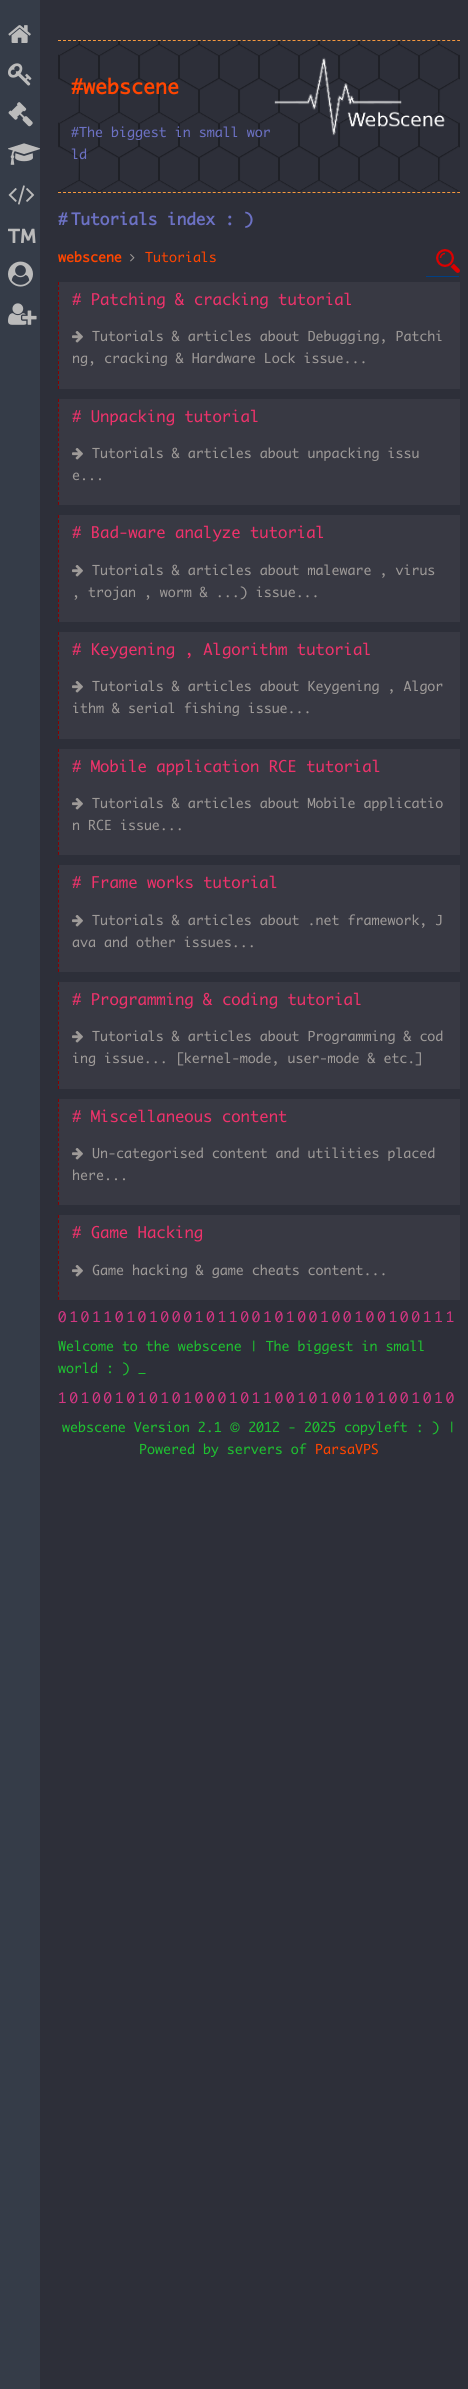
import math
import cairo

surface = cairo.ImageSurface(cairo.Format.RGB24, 468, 2389)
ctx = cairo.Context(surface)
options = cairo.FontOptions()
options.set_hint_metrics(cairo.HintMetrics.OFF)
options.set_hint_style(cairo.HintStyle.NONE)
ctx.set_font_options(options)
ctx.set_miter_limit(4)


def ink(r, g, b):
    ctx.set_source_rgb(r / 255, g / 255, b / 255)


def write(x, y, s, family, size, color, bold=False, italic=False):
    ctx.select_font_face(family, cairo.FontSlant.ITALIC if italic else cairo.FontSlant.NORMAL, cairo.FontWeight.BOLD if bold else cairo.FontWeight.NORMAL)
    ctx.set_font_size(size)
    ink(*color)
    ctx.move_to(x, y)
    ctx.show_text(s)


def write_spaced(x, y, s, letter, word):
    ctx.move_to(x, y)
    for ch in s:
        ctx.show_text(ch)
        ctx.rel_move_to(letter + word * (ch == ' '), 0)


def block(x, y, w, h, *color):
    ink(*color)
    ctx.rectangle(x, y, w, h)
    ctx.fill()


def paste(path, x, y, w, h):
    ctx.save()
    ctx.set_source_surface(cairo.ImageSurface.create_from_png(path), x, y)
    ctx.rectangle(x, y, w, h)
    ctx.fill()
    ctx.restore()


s1 = dict(family="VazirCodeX", size=20, color=(255, 69, 0), bold=True)
s2 = dict(family="VazirCodeX", size=13.3, color=(108, 113, 196))
s3 = dict(family="VazirCodeX", size=16, color=(108, 113, 196), bold=True)
s4 = dict(family="VazirCodeX", size=13.3, color=(255, 69, 0), bold=True)
s5 = dict(family="VazirCodeX", size=13.3, color=(255, 69, 0))
s6 = dict(family="VazirCodeX", size=15.6, color=(239, 50, 107))
s7 = dict(family="VazirCodeX", size=13.3, color=(158, 154, 152))
s8 = dict(family="VazirCodeX", size=13.3, color=(31, 194, 49))

ink(45, 47, 57)
ctx.paint()
block(0, 0, 40, 2389, 53, 60, 72)
paste("pic1.png", 8, 25, 23, 18)
paste("pic2.png", 8, 63, 24, 23)
paste("pic3.png", 8, 102, 25, 25)
paste("pic4.png", 8, 143, 32, 22)
paste("pic5.png", 8, 185, 27, 20)
paste("pic6.png", 8, 228, 28, 15)
paste("pic7.png", 8, 261, 25, 26)
paste("pic8.png", 8, 303, 29, 22)
paste("pic9.png", 58, 41, 402, 152)
ctx.new_path()
ctx.move_to(58, 40.5)
ctx.line_to(460, 40.5)
ink(246, 153, 63)
ctx.set_line_width(1)
ctx.set_dash([3, 1.99])
ctx.stroke()
ctx.new_path()
ctx.move_to(58, 192.5)
ctx.line_to(460, 192.5)
ctx.stroke()
write(71, 94, "#webscene", **s1)
paste("pic10.png", 274, 57, 171, 79)
write(71, 137, "#The biggest in small wor", **s2)
write(71, 159, "ld", **s2)
write(58, 225, "#", **s3)
write(71, 225, "Tutorials index : )", **s3)
write(58, 262, "webscene", **s4)
paste("pic11.png", 130, 254, 5, 8)
write(145, 262, "Tutorials", **s5)
paste("pic12.png", 436, 249, 24, 24)
block(426, 276, 33, 1, 0, 64, 133)
block(58, 282, 402, 107, 56, 57, 67)
ctx.new_path()
ctx.move_to(58.5, 282)
ctx.line_to(58.5, 389)
ink(139, 0, 0)
ctx.set_dash([3, 1.95])
ctx.stroke()
write(72, 305, "# Patching & cracking tutorial", **s6)
paste("pic13.png", 72, 331, 11, 12)
write(92, 341, "Tutorials & articles about Debugging, Patchi", **s7)
write(72, 363, "ng, cracking & Hardware Lock issue...", **s7)
block(58, 399, 402, 106, 56, 57, 67)
ctx.new_path()
ctx.move_to(58.5, 399)
ctx.line_to(58.5, 505)
ink(139, 0, 0)
ctx.set_dash([3, 1.9])
ctx.stroke()
write(72, 422, "# Unpacking tutorial", **s6)
paste("pic13.png", 72, 448, 11, 12)
write(92, 458, "Tutorials & articles about unpacking issu", **s7)
write(72, 480, "e...", **s7)
block(58, 515, 402, 107, 56, 57, 67)
ctx.new_path()
ctx.move_to(58.5, 515)
ctx.line_to(58.5, 622)
ink(139, 0, 0)
ctx.set_dash([3, 1.95])
ctx.stroke()
write(72, 538, "# Bad-ware analyze tutorial", **s6)
paste("pic13.png", 72, 565, 11, 12)
write(92, 575, "Tutorials & articles about maleware , virus", **s7)
write(72, 597, ", trojan , worm & ...) issue...", **s7)
block(58, 632, 402, 107, 56, 57, 67)
ctx.new_path()
ctx.move_to(58.5, 632)
ctx.line_to(58.5, 739)
ink(139, 0, 0)
ctx.stroke()
write(72, 655, "# Keygening , Algorithm tutorial", **s6)
paste("pic13.png", 72, 681, 11, 12)
write(92, 691, "Tutorials & articles about Keygening , Algor", **s7)
write(72, 713, "ithm & serial fishing issue...", **s7)
block(58, 749, 402, 106, 56, 57, 67)
ctx.new_path()
ctx.move_to(58.5, 749)
ctx.line_to(58.5, 855)
ink(139, 0, 0)
ctx.set_dash([3, 1.9])
ctx.stroke()
write(72, 772, "# Mobile application RCE tutorial", **s6)
paste("pic13.png", 72, 798, 11, 12)
write(92, 808, "Tutorials & articles about Mobile applicatio", **s7)
write(72, 830, "n RCE issue...", **s7)
block(58, 865, 402, 107, 56, 57, 67)
ctx.new_path()
ctx.move_to(58.5, 865)
ctx.line_to(58.5, 972)
ink(139, 0, 0)
ctx.set_dash([3, 1.95])
ctx.stroke()
write(72, 888, "# Frame works tutorial", **s6)
paste("pic13.png", 72, 915, 11, 12)
write(92, 925, "Tutorials & articles about .net framework, J", **s7)
write(72, 947, "ava and other issues...", **s7)
block(58, 982, 402, 107, 56, 57, 67)
ctx.new_path()
ctx.move_to(58.5, 982)
ctx.line_to(58.5, 1089)
ink(139, 0, 0)
ctx.stroke()
write(72, 1005, "# Programming & coding tutorial", **s6)
paste("pic13.png", 72, 1031, 11, 12)
write(92, 1041, "Tutorials & articles about Programming & cod", **s7)
write(72, 1063, "ing issue... [kernel-mode, user-mode & etc.]", **s7)
block(58, 1099, 402, 106, 56, 57, 67)
ctx.new_path()
ctx.move_to(58.5, 1099)
ctx.line_to(58.5, 1205)
ink(139, 0, 0)
ctx.set_dash([3, 1.9])
ctx.stroke()
write(72, 1122, "# Miscellaneous content", **s6)
paste("pic13.png", 72, 1148, 11, 12)
write(92, 1158, "Un-categorised content and utilities placed", **s7)
write(72, 1180, "here...", **s7)
block(58, 1215, 402, 85, 56, 57, 67)
ctx.new_path()
ctx.move_to(58.5, 1215)
ctx.line_to(58.5, 1300)
ink(139, 0, 0)
ctx.set_dash([3, 2.12])
ctx.stroke()
write(72, 1238, "# Game Hacking", **s6)
paste("pic13.png", 72, 1265, 11, 12)
write(92, 1275, "Game hacking & game cheats content...", **s7)
ctx.set_font_size(14)
ink(211, 54, 130)
write_spaced(58, 1322, "01011010100010110010100100100100111", 3, 0)
write(58, 1351, "Welcome to the webscene | The biggest in small", **s8)
write(58, 1373, "world : ) _", **s8)
ctx.set_font_size(14)
ink(211, 54, 130)
write_spaced(58, 1403, "10100101010100010110010100101001010", 3, 0)
write(62, 1432, "webscene Version 2.1 © 2012 - 2025 copyleft : ) |", **s8)
write(139, 1454, "Powered by servers of", **s8)
write(315, 1454, "ParsaVPS", **s5)
surface.write_to_png("screenshot.png")
